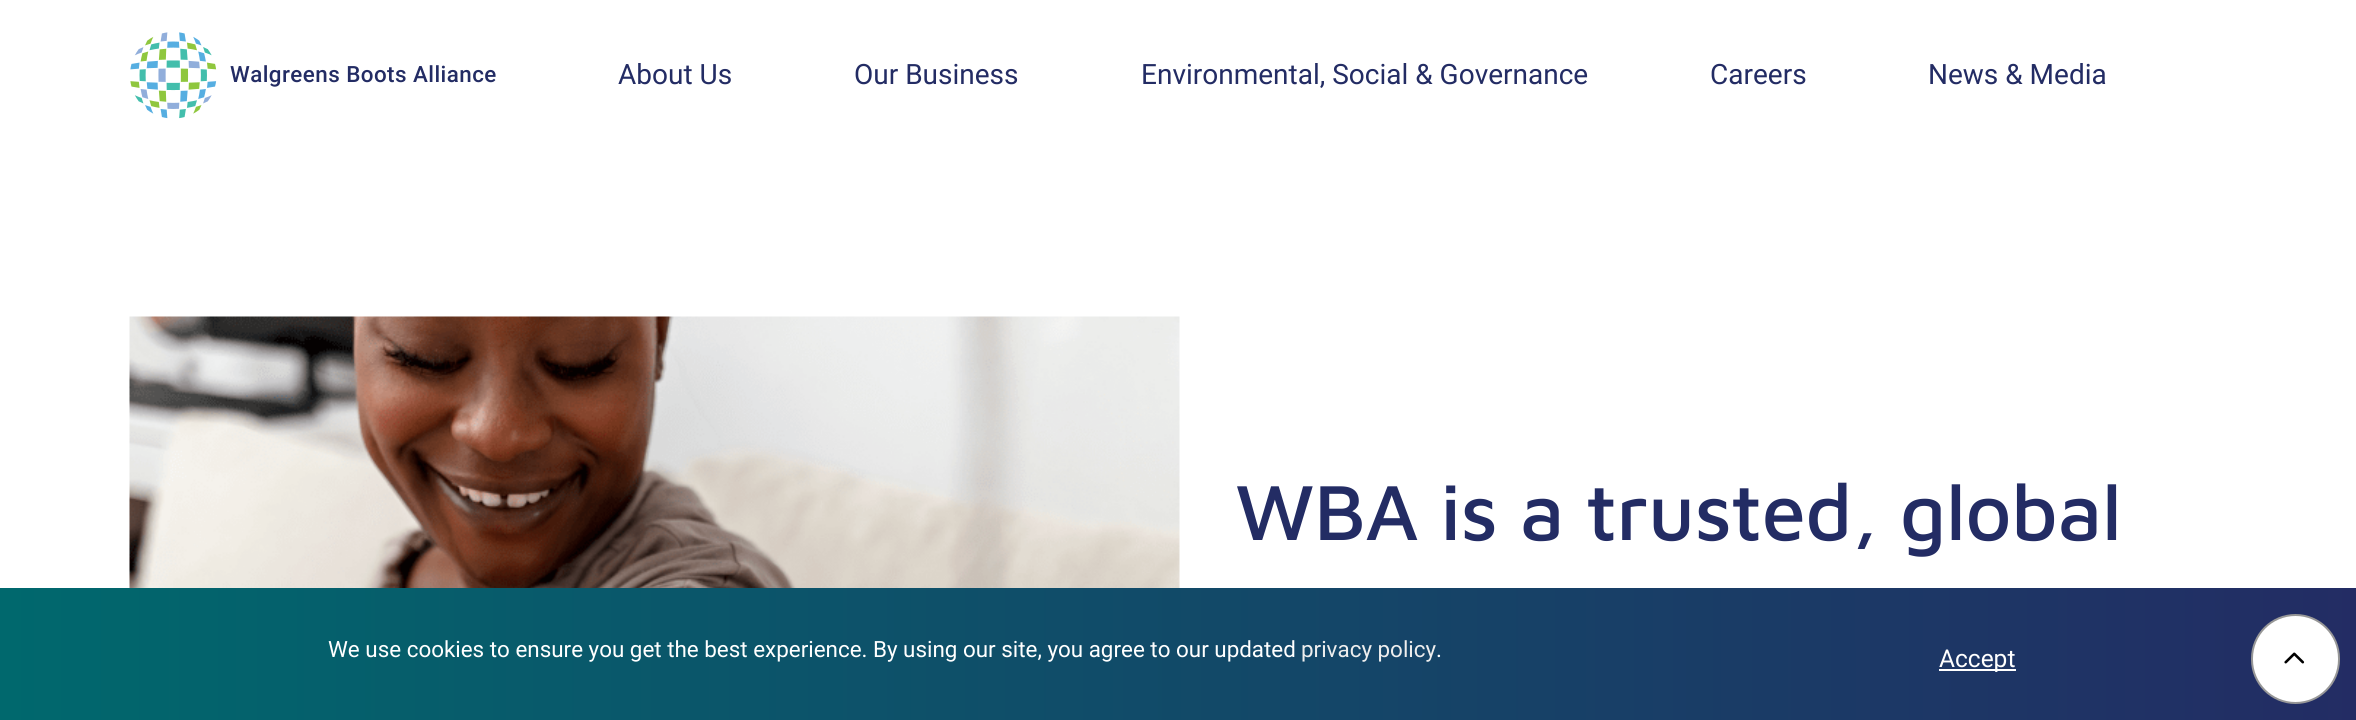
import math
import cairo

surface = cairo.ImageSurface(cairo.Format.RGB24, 2356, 720)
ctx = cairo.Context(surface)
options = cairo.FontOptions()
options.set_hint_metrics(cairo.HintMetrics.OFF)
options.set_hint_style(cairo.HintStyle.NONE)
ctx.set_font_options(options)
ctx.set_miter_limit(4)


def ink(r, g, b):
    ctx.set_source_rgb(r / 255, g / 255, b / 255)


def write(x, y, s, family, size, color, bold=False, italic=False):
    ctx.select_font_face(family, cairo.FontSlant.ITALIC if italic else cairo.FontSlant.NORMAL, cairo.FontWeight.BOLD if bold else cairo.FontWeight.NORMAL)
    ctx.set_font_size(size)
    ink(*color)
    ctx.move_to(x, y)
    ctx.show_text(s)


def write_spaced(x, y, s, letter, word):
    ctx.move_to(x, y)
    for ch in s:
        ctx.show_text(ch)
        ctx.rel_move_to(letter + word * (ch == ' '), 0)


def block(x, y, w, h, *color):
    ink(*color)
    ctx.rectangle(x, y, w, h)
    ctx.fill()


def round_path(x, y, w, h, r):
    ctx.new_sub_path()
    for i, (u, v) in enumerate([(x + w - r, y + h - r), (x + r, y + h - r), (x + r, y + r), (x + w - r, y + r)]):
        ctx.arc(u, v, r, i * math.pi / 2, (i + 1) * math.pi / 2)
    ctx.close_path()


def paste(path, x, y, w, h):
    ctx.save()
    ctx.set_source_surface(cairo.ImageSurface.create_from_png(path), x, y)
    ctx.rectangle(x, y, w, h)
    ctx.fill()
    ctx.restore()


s1 = dict(family="Roboto", size=28, color=(35, 44, 100))
s2 = dict(family="Roboto", size=22.4, color=(255, 255, 255))
s3 = dict(family="Roboto", size=22.4, color=(238, 238, 238))
s4 = dict(family="Roboto", size=24.5, color=(255, 255, 255))

ink(255, 255, 255)
ctx.paint()
paste("pic1.png", 130, 32, 87, 87)
ctx.select_font_face("Roboto Medium")
ctx.set_font_size(22.4)
ink(35, 44, 100)
write_spaced(230, 82, "Walgreens Boots Alliance", 0.45, 0)
write(618, 84, "About Us", **s1)
write(854, 84, "Our Business", **s1)
write(1141, 84, "Environmental, Social & Governance", **s1)
write(1710, 84, "Careers", **s1)
write(1928, 84, "News & Media", **s1)
paste("pic2.png", 129, 316, 1051, 272)
ctx.select_font_face("Maven Pro Medium")
ctx.set_font_size(80.5)
write_spaced(1235, 540, "WBA is a trusted, global", -0.7, 0)
gradient = cairo.LinearGradient(0, 655, 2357, 654)
gradient.add_color_stop_rgba(0, 0, 0.408, 0.427, 1)
gradient.add_color_stop_rgba(1, 0.137, 0.173, 0.392, 1)
ctx.set_source(gradient)
ctx.rectangle(0, 588, 2356, 132)
ctx.fill()
ink(255, 255, 255)
round_path(2252, 615, 87, 88, 43.5)
ctx.fill_preserve()
ink(151, 151, 151)
ctx.stroke()
paste("pic3.png", 2284, 652, 21, 12)
write(328, 657, "We use cookies to ensure you get the best experience. By using our site, you agree to our updated", **s2)
write(1301, 657, "privacy policy", **s3)
write(1436, 657, ".", **s2)
block(1939, 669, 77, 2, 255, 255, 255)
write(1939, 667, "Accept", **s4)
surface.write_to_png("screenshot.png")
